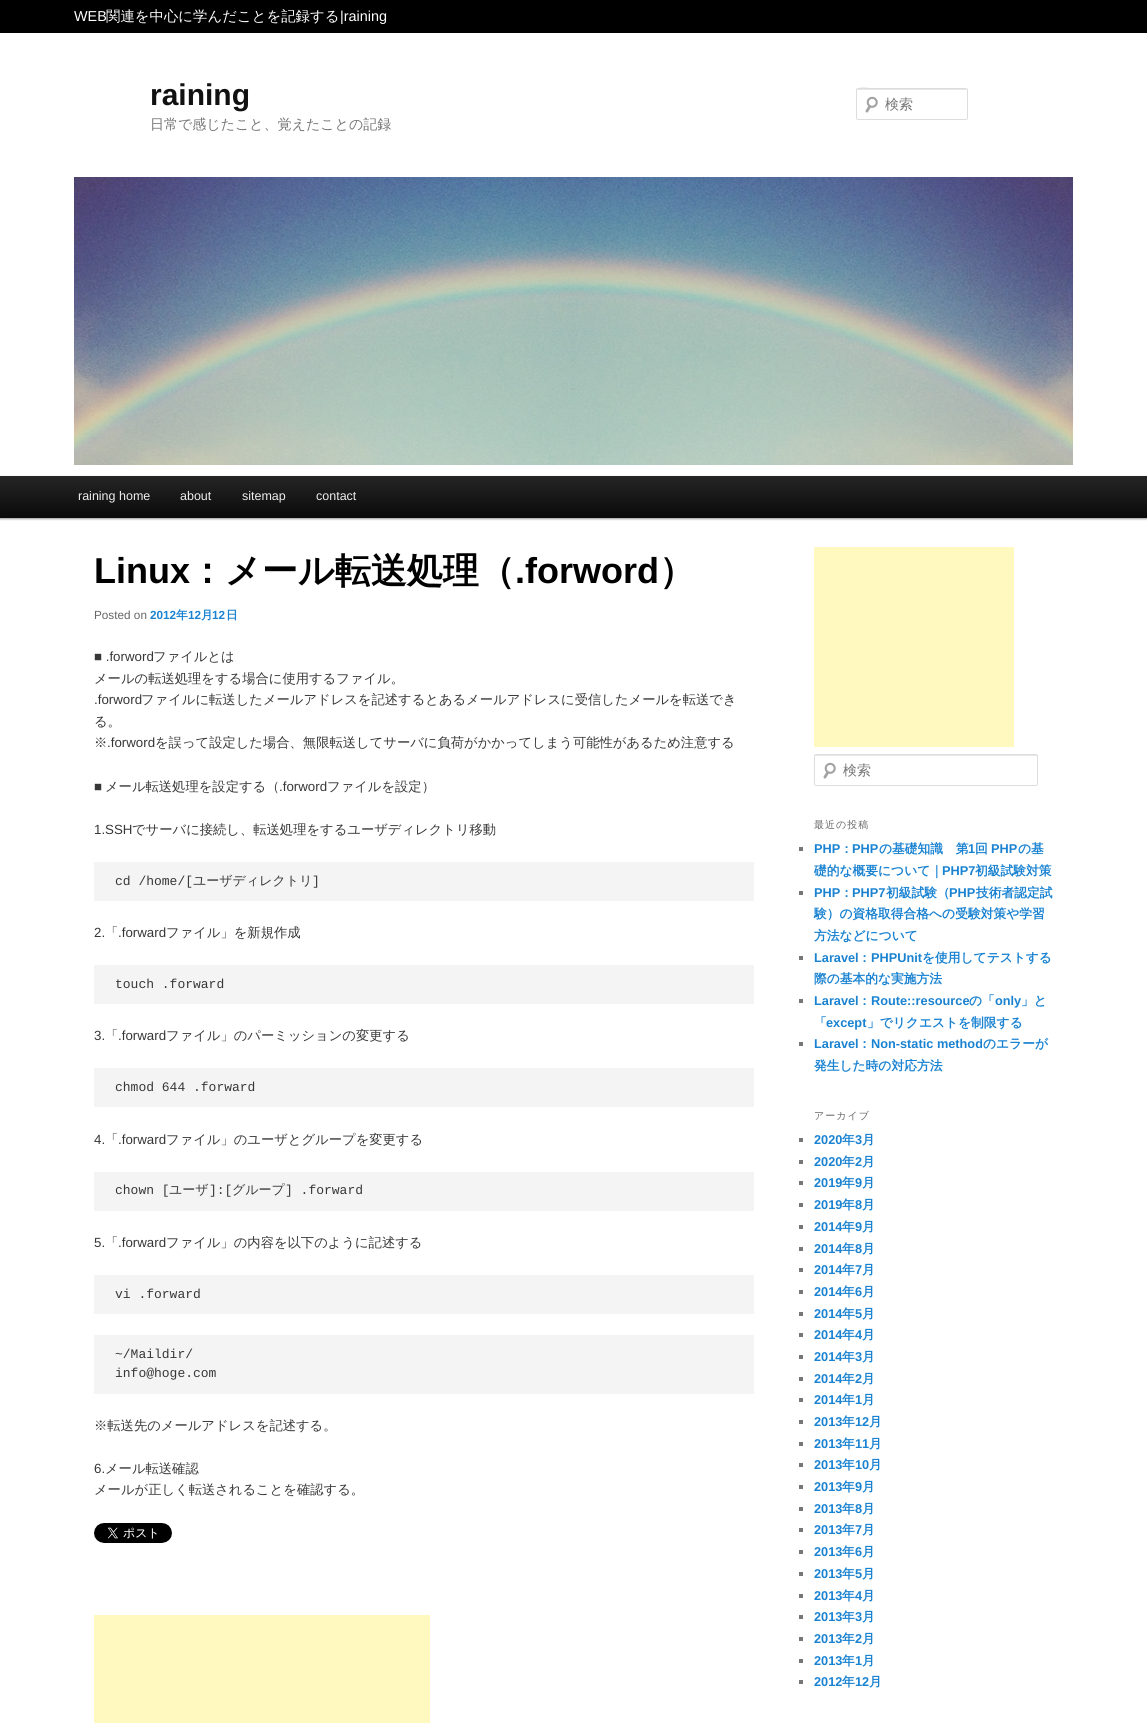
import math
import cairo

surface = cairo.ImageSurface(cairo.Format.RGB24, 1147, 1723)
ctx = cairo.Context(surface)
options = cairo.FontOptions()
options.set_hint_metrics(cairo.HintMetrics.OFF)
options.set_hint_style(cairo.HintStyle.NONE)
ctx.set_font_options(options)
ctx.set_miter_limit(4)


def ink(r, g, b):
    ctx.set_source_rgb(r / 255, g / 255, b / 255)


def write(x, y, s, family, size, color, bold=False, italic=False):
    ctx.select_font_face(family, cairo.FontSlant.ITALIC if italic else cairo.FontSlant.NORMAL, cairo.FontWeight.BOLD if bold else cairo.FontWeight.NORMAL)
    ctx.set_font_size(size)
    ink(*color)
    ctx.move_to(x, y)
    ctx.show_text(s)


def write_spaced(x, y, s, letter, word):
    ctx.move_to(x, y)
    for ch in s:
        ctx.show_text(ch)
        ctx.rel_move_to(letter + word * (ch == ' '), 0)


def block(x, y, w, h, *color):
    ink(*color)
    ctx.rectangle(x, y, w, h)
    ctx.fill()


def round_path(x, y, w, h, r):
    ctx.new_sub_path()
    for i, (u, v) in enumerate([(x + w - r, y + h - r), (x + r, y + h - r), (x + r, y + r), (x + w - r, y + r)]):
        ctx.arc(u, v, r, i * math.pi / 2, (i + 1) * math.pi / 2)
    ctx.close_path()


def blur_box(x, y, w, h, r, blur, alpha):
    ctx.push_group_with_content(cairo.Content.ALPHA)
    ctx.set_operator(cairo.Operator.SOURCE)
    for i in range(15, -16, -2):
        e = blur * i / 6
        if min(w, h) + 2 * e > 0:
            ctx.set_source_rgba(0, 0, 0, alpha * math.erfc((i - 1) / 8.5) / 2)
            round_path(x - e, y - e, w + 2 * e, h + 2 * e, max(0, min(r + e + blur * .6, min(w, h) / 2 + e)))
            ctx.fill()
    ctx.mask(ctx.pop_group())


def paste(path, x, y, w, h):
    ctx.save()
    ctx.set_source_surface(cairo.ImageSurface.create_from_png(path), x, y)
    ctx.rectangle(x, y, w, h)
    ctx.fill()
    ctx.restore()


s1 = dict(family="Liberation Sans", size=14.4, color=(255, 255, 255))
s2 = dict(family="WenQuanYi Zen Hei Medium", size=14.4, color=(255, 255, 255))
s3 = dict(family="Liberation Sans", size=30, color=(17, 17, 17), bold=True)
s4 = dict(family="WenQuanYi Zen Hei Medium", size=14, color=(117, 117, 117))
s5 = dict(family="Liberation Sans", size=12.5, color=(238, 238, 238))
s6 = dict(family="Liberation Sans", size=36, color=(0, 0, 0), bold=True)
s7 = dict(family="WenQuanYi Zen Hei", size=36, color=(0, 0, 0), bold=True)
s8 = dict(family="Liberation Sans", size=11.75, color=(102, 102, 102))
s9 = dict(family="Liberation Sans", size=11.75, color=(25, 130, 209), bold=True)
s10 = dict(family="WenQuanYi Zen Hei", size=11.75, color=(25, 130, 209), bold=True)
s11 = dict(family="Liberation Sans", size=13.3, color=(55, 55, 55))
s12 = dict(family="WenQuanYi Zen Hei Medium", size=13.3, color=(55, 55, 55))
s13 = dict(family="Liberation Mono", size=13, color=(55, 55, 55))
s14 = dict(family="WenQuanYi Zen Hei Medium", size=13, color=(55, 55, 55))
s15 = dict(family="Liberation Sans", size=12.75, color=(25, 130, 209), bold=True)
s16 = dict(family="WenQuanYi Zen Hei", size=12.75, color=(25, 130, 209), bold=True)

ink(255, 255, 255)
ctx.paint()
block(0, 0, 1147, 33, 0, 0, 0)
write(74, 21, "WEB", **s1)
write(106, 21, "関連を中心に学んだことを記録する", **s2)
write(340, 21, "|raining", **s1)
write(150, 105, "raining", **s3)
write(150, 129, "日常で感じたこと、覚えたことの記録", **s4)
paste("pic1.png", 865, 96, 13, 17)
ink(230, 230, 230)
ctx.new_path()
ctx.move_to(858, 90)
ctx.line_to(967, 90)
ctx.line_to(967, 91)
ctx.line_to(966, 89)
ctx.line_to(876, 89)
ctx.curve_to(872, 89, 857, 84, 857, 91)
ctx.curve_to(857, 90, 857, 90, 858, 90)
ctx.close_path()
ctx.fill()
round_path(856.5, 88.5, 111, 31, 1.5)
ink(221, 221, 221)
ctx.set_line_width(1)
ctx.stroke()
write(885, 109, "検索", **s4)
paste("pic2.png", 74, 177, 1000, 288)
ink(0, 0, 0)
blur_box(0, 477, 1147, 42, 0, 1, 0.4)
gradient = cairo.LinearGradient(574, 476, 574, 518)
gradient.add_color_stop_rgba(0, 0.145, 0.145, 0.145, 1)
gradient.add_color_stop_rgba(1, 0.039, 0.039, 0.039, 1)
ctx.set_source(gradient)
ctx.rectangle(0, 476, 1147, 42)
ctx.fill()
write(78, 500, "raining home", **s5)
write(180, 500, "about", **s5)
write(242, 500, "sitemap", **s5)
write(316, 500, "contact", **s5)
write(94, 583, "Linux", **s6)
write(189, 583, "：メール転送処理（", **s7)
write(515, 583, ".forword", **s6)
write(659, 583, "）", **s7)
write(94, 619, "Posted on", **s8)
write(150, 619, "2012", **s9)
write(176, 619, "年", **s10)
write(188, 619, "12", **s9)
write(201, 619, "月", **s10)
write(212, 619, "12", **s9)
write(226, 619, "日", **s10)
write(94, 661, "■ .forword", **s11)
write(153, 661, "ファイルとは", **s12)
write(94, 683, "メールの転送処理をする場合に使用するファイル。", **s12)
write(94, 704, ".forword", **s11)
write(141, 704, "ファイルに転送したメールアドレスを記述するとあるメールアドレスに受信したメールを転送でき", **s12)
write(94, 726, "る。", **s12)
write(94, 747, "※", **s12)
write(107, 747, ".forword", **s11)
write(155, 747, "を誤って設定した場合、無限転送してサーバに負荷がかかってしまう可能性があるため注意する", **s12)
write(94, 791, "■", **s11)
write(105, 791, "メール転送処理を設定する（", **s12)
write(279, 791, ".forword", **s11)
write(327, 791, "ファイルを設定）", **s12)
write(94, 834, "1.SSH", **s11)
write(132, 834, "でサーバに接続し、転送処理をするユーザディレクトリ移動", **s12)
block(94, 862, 660, 39, 244, 244, 244)
write(115, 885, "cd /home/[", **s13)
write(193, 885, "ユーザディレクトリ", **s14)
write(312, 885, "]", **s13)
write(94, 937, "2.", **s11)
write(105, 937, "「", **s12)
write(118, 937, ".forward", **s11)
write(166, 937, "ファイル」を新規作成", **s12)
block(94, 965, 660, 39, 244, 244, 244)
write(115, 988, "touch .forward", **s13)
write(94, 1040, "3.", **s11)
write(105, 1040, "「", **s12)
write(118, 1040, ".forward", **s11)
write(166, 1040, "ファイル」のパーミッションの変更する", **s12)
block(94, 1068, 660, 39, 244, 244, 244)
write(115, 1091, "chmod 644 .forward", **s13)
write(94, 1144, "4.", **s11)
write(105, 1144, "「", **s12)
write(118, 1144, ".forward", **s11)
write(166, 1144, "ファイル」のユーザとグループを変更する", **s12)
block(94, 1172, 660, 39, 244, 244, 244)
write(115, 1194, "chown [", **s13)
write(169, 1194, "ユーザ", **s14)
write(209, 1194, "]:[", **s13)
write(232, 1194, "グループ", **s14)
write(285, 1194, "] .forward", **s13)
write(94, 1247, "5.", **s11)
write(105, 1247, "「", **s12)
write(118, 1247, ".forward", **s11)
write(166, 1247, "ファイル」の内容を以下のように記述する", **s12)
block(94, 1275, 660, 39, 244, 244, 244)
write(115, 1298, "vi .forward", **s13)
block(94, 1335, 660, 59, 244, 244, 244)
write(115, 1358, "~/Maildir/", **s13)
write(115, 1377, "info@hoge.com", **s13)
write(94, 1430, "※転送先のメールアドレスを記述する。", **s12)
write(94, 1473, "6.", **s11)
write(105, 1473, "メール転送確認", **s12)
write(94, 1494, "メールが正しく転送されることを確認する。", **s12)
paste("pic3.png", 94, 1523, 78, 20)
block(94, 1615, 336, 108, 255, 249, 192)
block(814, 547, 200, 200, 255, 249, 192)
paste("pic1.png", 823, 762, 13, 17)
ink(230, 230, 230)
ctx.new_path()
ctx.move_to(816, 756)
ctx.line_to(1037, 756)
ctx.line_to(1037, 757)
ctx.line_to(1037, 755)
ctx.line_to(816, 755)
ctx.curve_to(815, 755, 815, 756, 815, 757)
ctx.curve_to(815, 756, 815, 756, 816, 756)
ctx.close_path()
ctx.fill()
round_path(814.5, 754.5, 223, 31, 1.5)
ink(221, 221, 221)
ctx.stroke()
write(843, 775, "検索", **s4)
ctx.set_font_size(10)
ink(102, 102, 102)
write_spaced(814, 828, "最近の投稿", 1, 0)
block(799, 847, 4, 4, 119, 119, 119)
write(814, 853, "PHP", **s15)
write(840, 853, "：", **s16)
write(852, 853, "PHP", **s15)
write(879, 853, "の基礎知識　第", **s16)
write(968, 853, "1", **s15)
write(975, 853, "回", **s16)
write(991, 853, "PHP", **s15)
write(1018, 853, "の基", **s16)
write(814, 875, "礎的な概要について｜", **s16)
write(942, 875, "PHP7", **s15)
write(975, 875, "初級試験対策", **s16)
block(799, 891, 4, 4, 119, 119, 119)
write(814, 897, "PHP", **s15)
write(840, 897, "：", **s16)
write(852, 897, "PHP7", **s15)
write(886, 897, "初級試験（", **s16)
write(949, 897, "PHP", **s15)
write(976, 897, "技術者認定試", **s16)
write(814, 918, "験）の資格取得合格への受験対策や学習", **s16)
write(814, 940, "方法などについて", **s16)
block(799, 956, 4, 4, 119, 119, 119)
write(814, 962, "Laravel", **s15)
write(858, 962, "：", **s16)
write(871, 962, "PHPUnit", **s15)
write(922, 962, "を使用してテストする", **s16)
write(814, 983, "際の基本的な実施方法", **s16)
block(799, 999, 4, 4, 119, 119, 119)
write(814, 1005, "Laravel", **s15)
write(858, 1005, "：", **s16)
write(871, 1005, "Route::resource", **s15)
write(969, 1005, "の「", **s16)
write(995, 1005, "only", **s15)
write(1021, 1005, "」と", **s16)
write(814, 1027, "「", **s16)
write(826, 1027, "except", **s15)
write(867, 1027, "」でリクエストを制限する", **s16)
block(799, 1042, 4, 4, 119, 119, 119)
write(814, 1048, "Laravel", **s15)
write(858, 1048, "：", **s16)
write(871, 1048, "Non-static method", **s15)
write(983, 1048, "のエラーが", **s16)
write(814, 1070, "発生した時の対応方法", **s16)
ctx.select_font_face("WenQuanYi Zen Hei Medium")
ctx.set_font_size(10)
ink(102, 102, 102)
write_spaced(814, 1119, "アーカイブ", 1, 0)
block(799, 1138, 4, 4, 119, 119, 119)
write(814, 1144, "2020", **s15)
write(842, 1144, "年", **s16)
write(855, 1144, "3", **s15)
write(862, 1144, "月", **s16)
block(799, 1160, 4, 4, 119, 119, 119)
write(814, 1166, "2020", **s15)
write(842, 1166, "年", **s16)
write(855, 1166, "2", **s15)
write(862, 1166, "月", **s16)
block(799, 1181, 4, 4, 119, 119, 119)
write(814, 1187, "2019", **s15)
write(842, 1187, "年", **s16)
write(855, 1187, "9", **s15)
write(862, 1187, "月", **s16)
block(799, 1203, 4, 4, 119, 119, 119)
write(814, 1209, "2019", **s15)
write(842, 1209, "年", **s16)
write(855, 1209, "8", **s15)
write(862, 1209, "月", **s16)
block(799, 1225, 4, 4, 119, 119, 119)
write(814, 1231, "2014", **s15)
write(842, 1231, "年", **s16)
write(855, 1231, "9", **s15)
write(862, 1231, "月", **s16)
block(799, 1247, 4, 4, 119, 119, 119)
write(814, 1253, "2014", **s15)
write(842, 1253, "年", **s16)
write(855, 1253, "8", **s15)
write(862, 1253, "月", **s16)
block(799, 1268, 4, 4, 119, 119, 119)
write(814, 1274, "2014", **s15)
write(842, 1274, "年", **s16)
write(855, 1274, "7", **s15)
write(862, 1274, "月", **s16)
block(799, 1290, 4, 4, 119, 119, 119)
write(814, 1296, "2014", **s15)
write(842, 1296, "年", **s16)
write(855, 1296, "6", **s15)
write(862, 1296, "月", **s16)
block(799, 1312, 4, 4, 119, 119, 119)
write(814, 1318, "2014", **s15)
write(842, 1318, "年", **s16)
write(855, 1318, "5", **s15)
write(862, 1318, "月", **s16)
block(799, 1333, 4, 4, 119, 119, 119)
write(814, 1339, "2014", **s15)
write(842, 1339, "年", **s16)
write(855, 1339, "4", **s15)
write(862, 1339, "月", **s16)
block(799, 1355, 4, 4, 119, 119, 119)
write(814, 1361, "2014", **s15)
write(842, 1361, "年", **s16)
write(855, 1361, "3", **s15)
write(862, 1361, "月", **s16)
block(799, 1377, 4, 4, 119, 119, 119)
write(814, 1383, "2014", **s15)
write(842, 1383, "年", **s16)
write(855, 1383, "2", **s15)
write(862, 1383, "月", **s16)
block(799, 1398, 4, 4, 119, 119, 119)
write(814, 1404, "2014", **s15)
write(842, 1404, "年", **s16)
write(855, 1404, "1", **s15)
write(862, 1404, "月", **s16)
block(799, 1420, 4, 4, 119, 119, 119)
write(814, 1426, "2013", **s15)
write(842, 1426, "年", **s16)
write(855, 1426, "12", **s15)
write(869, 1426, "月", **s16)
block(799, 1442, 4, 4, 119, 119, 119)
write(814, 1448, "2013", **s15)
write(842, 1448, "年", **s16)
write(855, 1448, "11", **s15)
write(869, 1448, "月", **s16)
block(799, 1463, 4, 4, 119, 119, 119)
write(814, 1469, "2013", **s15)
write(842, 1469, "年", **s16)
write(855, 1469, "10", **s15)
write(869, 1469, "月", **s16)
block(799, 1485, 4, 4, 119, 119, 119)
write(814, 1491, "2013", **s15)
write(842, 1491, "年", **s16)
write(855, 1491, "9", **s15)
write(862, 1491, "月", **s16)
block(799, 1507, 4, 4, 119, 119, 119)
write(814, 1513, "2013", **s15)
write(842, 1513, "年", **s16)
write(855, 1513, "8", **s15)
write(862, 1513, "月", **s16)
block(799, 1528, 4, 4, 119, 119, 119)
write(814, 1534, "2013", **s15)
write(842, 1534, "年", **s16)
write(855, 1534, "7", **s15)
write(862, 1534, "月", **s16)
block(799, 1550, 4, 4, 119, 119, 119)
write(814, 1556, "2013", **s15)
write(842, 1556, "年", **s16)
write(855, 1556, "6", **s15)
write(862, 1556, "月", **s16)
block(799, 1572, 4, 4, 119, 119, 119)
write(814, 1578, "2013", **s15)
write(842, 1578, "年", **s16)
write(855, 1578, "5", **s15)
write(862, 1578, "月", **s16)
block(799, 1594, 4, 4, 119, 119, 119)
write(814, 1600, "2013", **s15)
write(842, 1600, "年", **s16)
write(855, 1600, "4", **s15)
write(862, 1600, "月", **s16)
block(799, 1615, 4, 4, 119, 119, 119)
write(814, 1621, "2013", **s15)
write(842, 1621, "年", **s16)
write(855, 1621, "3", **s15)
write(862, 1621, "月", **s16)
block(799, 1637, 4, 4, 119, 119, 119)
write(814, 1643, "2013", **s15)
write(842, 1643, "年", **s16)
write(855, 1643, "2", **s15)
write(862, 1643, "月", **s16)
block(799, 1659, 4, 4, 119, 119, 119)
write(814, 1665, "2013", **s15)
write(842, 1665, "年", **s16)
write(855, 1665, "1", **s15)
write(862, 1665, "月", **s16)
block(799, 1680, 4, 4, 119, 119, 119)
write(814, 1686, "2012", **s15)
write(842, 1686, "年", **s16)
write(855, 1686, "12", **s15)
write(869, 1686, "月", **s16)
surface.write_to_png("screenshot.png")
